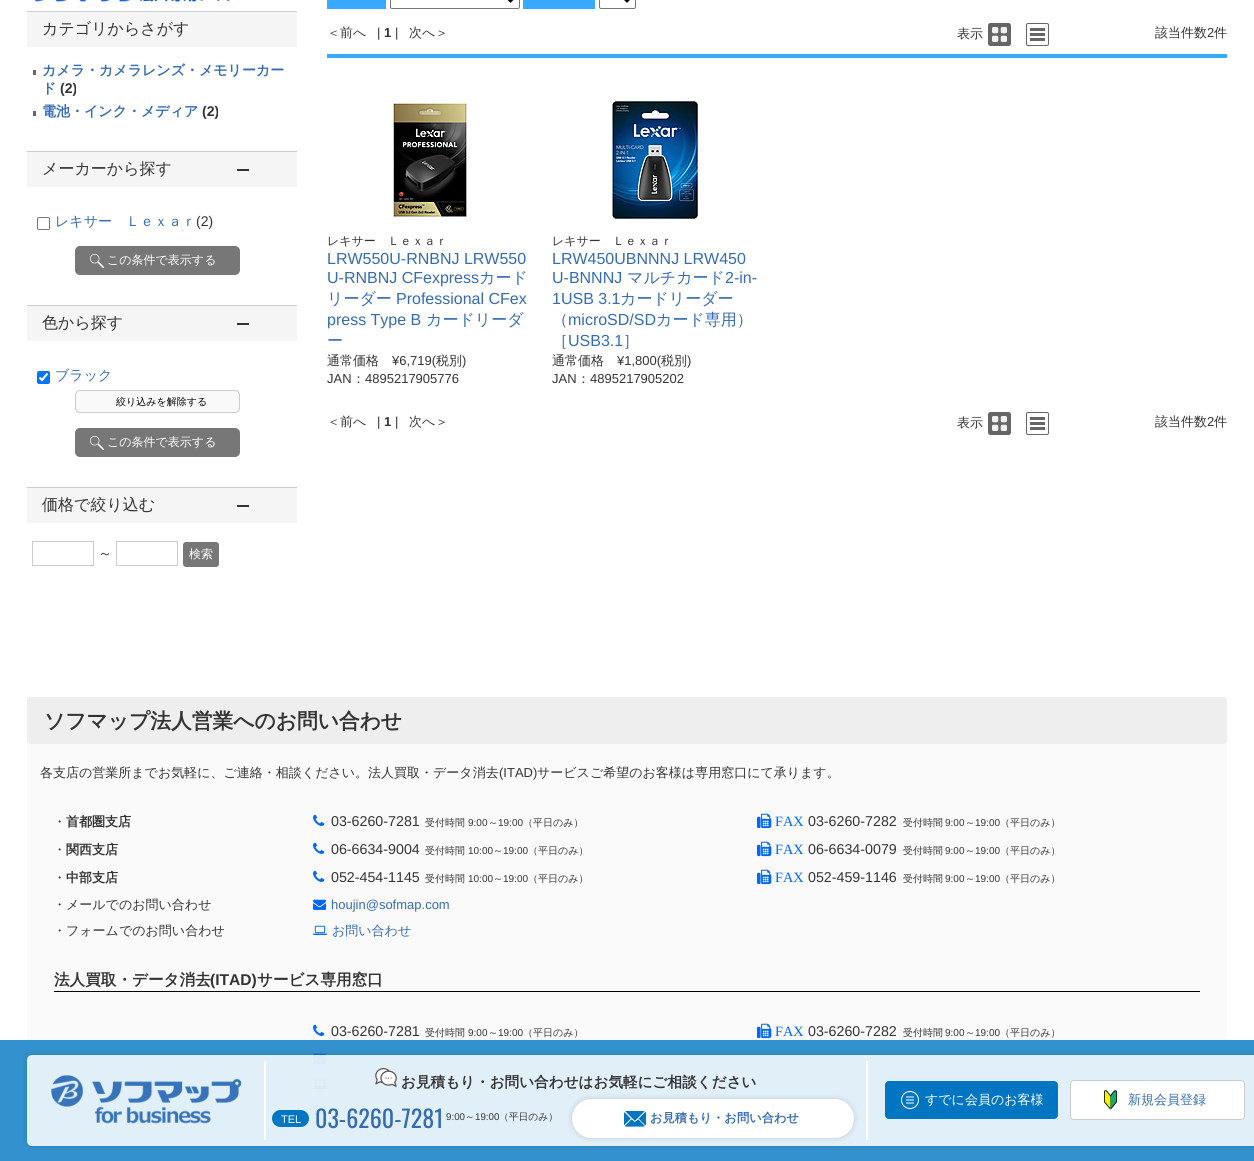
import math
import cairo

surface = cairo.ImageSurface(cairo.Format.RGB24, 1254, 1161)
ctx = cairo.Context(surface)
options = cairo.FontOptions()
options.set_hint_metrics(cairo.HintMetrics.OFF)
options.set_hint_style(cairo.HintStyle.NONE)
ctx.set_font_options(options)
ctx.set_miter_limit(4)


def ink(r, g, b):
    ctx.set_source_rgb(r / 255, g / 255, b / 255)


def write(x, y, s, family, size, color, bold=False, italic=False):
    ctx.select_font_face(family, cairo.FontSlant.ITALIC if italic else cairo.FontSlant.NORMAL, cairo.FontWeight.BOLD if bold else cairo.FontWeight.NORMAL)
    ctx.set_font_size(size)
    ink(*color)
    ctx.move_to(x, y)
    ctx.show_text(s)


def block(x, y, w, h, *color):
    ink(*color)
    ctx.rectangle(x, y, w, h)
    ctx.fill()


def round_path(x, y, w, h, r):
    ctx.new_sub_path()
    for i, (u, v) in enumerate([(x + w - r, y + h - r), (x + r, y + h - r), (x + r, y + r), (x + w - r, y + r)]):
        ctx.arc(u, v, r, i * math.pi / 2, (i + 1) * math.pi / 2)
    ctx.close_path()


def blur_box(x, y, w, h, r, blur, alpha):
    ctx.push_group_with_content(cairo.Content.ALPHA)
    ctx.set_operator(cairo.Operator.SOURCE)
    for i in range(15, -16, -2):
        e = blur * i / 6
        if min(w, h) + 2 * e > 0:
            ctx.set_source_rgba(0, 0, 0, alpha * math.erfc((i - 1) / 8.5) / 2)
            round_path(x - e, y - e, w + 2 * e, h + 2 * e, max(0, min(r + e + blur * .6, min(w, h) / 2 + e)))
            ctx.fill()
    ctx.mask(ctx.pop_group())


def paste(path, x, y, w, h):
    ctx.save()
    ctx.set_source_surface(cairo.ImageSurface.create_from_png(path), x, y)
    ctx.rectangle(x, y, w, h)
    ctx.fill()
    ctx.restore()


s1 = dict(family="WenQuanYi Zen Hei Medium", size=16, color=(51, 51, 51))
s2 = dict(family="WenQuanYi Zen Hei", size=14, color=(53, 107, 179), bold=True)
s3 = dict(family="Liberation Sans", size=14, color=(51, 51, 51), bold=True)
s4 = dict(family="WenQuanYi Zen Hei Medium", size=14, color=(53, 107, 179))
s5 = dict(family="Liberation Sans", size=14, color=(51, 51, 51))
s6 = dict(family="WenQuanYi Zen Hei Medium", size=12, color=(255, 255, 255))
s7 = dict(family="WenQuanYi Zen Hei Medium", size=10, color=(0, 0, 0))
s8 = dict(family="WenQuanYi Zen Hei Medium", size=14, color=(51, 51, 51))
s9 = dict(family="WenQuanYi Zen Hei Medium", size=13, color=(51, 51, 51))
s10 = dict(family="Liberation Sans", size=13, color=(51, 51, 51))
s11 = dict(family="Liberation Sans", size=13, color=(51, 51, 51), bold=True)
s12 = dict(family="WenQuanYi Zen Hei Medium", size=12, color=(51, 51, 51))
s13 = dict(family="Liberation Sans", size=16, color=(53, 107, 179))
s14 = dict(family="WenQuanYi Zen Hei Medium", size=16, color=(53, 107, 179))
s15 = dict(family="WenQuanYi Zen Hei", size=20.75, color=(51, 51, 51), bold=True)
s16 = dict(family="WenQuanYi Zen Hei", size=13, color=(51, 51, 51), bold=True)
s17 = dict(family="Liberation Sans", size=14.25, color=(51, 51, 51))
s18 = dict(family="WenQuanYi Zen Hei Medium", size=10, color=(51, 51, 51))
s19 = dict(family="Liberation Sans", size=10, color=(51, 51, 51))
s20 = dict(family="Liberation Serif", size=14.25, color=(0, 102, 255))
s21 = dict(family="Liberation Sans", size=13, color=(53, 107, 179))
s22 = dict(family="WenQuanYi Zen Hei Medium", size=13, color=(53, 107, 179))
s23 = dict(family="WenQuanYi Zen Hei", size=15.6, color=(51, 51, 51), bold=True)
s24 = dict(family="Liberation Sans", size=15.6, color=(51, 51, 51), bold=True)
s25 = dict(family="WenQuanYi Zen Hei", size=14.6, color=(51, 51, 51), bold=True)
s26 = dict(family="Liberation Sans", size=11, color=(255, 255, 255))
s27 = dict(family="Oswald", size=24, color=(53, 107, 179))
s28 = dict(family="Liberation Sans", size=9.75, color=(51, 51, 51))
s29 = dict(family="WenQuanYi Zen Hei Medium", size=9.75, color=(51, 51, 51))
s30 = dict(family="WenQuanYi Zen Hei", size=12.25, color=(53, 107, 179), bold=True)
s31 = dict(family="WenQuanYi Zen Hei Medium", size=13, color=(255, 255, 255))

ink(255, 255, 255)
ctx.paint()
block(0, 1040, 1254, 121, 51, 145, 205)
paste("pic1.png", 35, 0, 195, 2)
block(27, 12, 270, 35, 245, 245, 245)
block(27, 11, 270, 1, 204, 204, 204)
write(42, 34, "カテゴリからさがす", **s1)
block(33, 70, 3, 5, 102, 102, 102)
write(42, 75, "カメラ・カメラレンズ・メモリーカー", **s2)
write(42, 93, "ド", **s2)
write(60, 93, "(2)", **s3)
block(33, 111, 3, 5, 102, 102, 102)
write(42, 116, "電池・インク・メディア", **s2)
write(202, 116, "(2)", **s3)
block(27, 152, 270, 35, 245, 245, 245)
block(237, 169, 12, 2, 51, 51, 51)
block(27, 151, 270, 1, 204, 204, 204)
write(42, 174, "メーカーから探す", **s1)
round_path(37.5, 217.5, 12, 12, 1.5)
ink(118, 118, 118)
ctx.set_line_width(1)
ctx.stroke()
write(55, 226, "レキサー　Ｌｅｘａｒ", **s4)
write(196, 226, "(2)", **s5)
ink(119, 119, 119)
round_path(75, 246, 165, 29, 5)
ctx.fill()
paste("pic2.png", 90, 254, 14, 14)
write(107, 264, "この条件で表示する", **s6)
block(27, 306, 270, 35, 245, 245, 245)
block(237, 323, 12, 2, 51, 51, 51)
block(27, 305, 270, 1, 204, 204, 204)
write(42, 328, "色から探す", **s1)
ink(0, 117, 255)
round_path(37, 371, 13, 13, 2)
ctx.fill()
ctx.new_path()
ctx.move_to(39.5, 377.5)
ctx.line_to(42, 380)
ctx.line_to(47.5, 373.5)
ink(255, 255, 255)
ctx.set_line_width(2.1)
ctx.stroke()
write(55, 380, "ブラック", **s4)
ink(249, 249, 249)
round_path(75.5, 390.5, 164, 22, 4.5)
ctx.fill_preserve()
ink(204, 204, 204)
ctx.set_line_width(1)
ctx.stroke()
write(116, 405, "絞り込みを解除する", **s7)
ink(119, 119, 119)
round_path(75, 428, 165, 29, 5)
ctx.fill()
paste("pic2.png", 90, 436, 14, 14)
write(107, 446, "この条件で表示する", **s6)
block(27, 488, 270, 35, 245, 245, 245)
block(237, 505, 12, 2, 51, 51, 51)
block(27, 487, 270, 1, 204, 204, 204)
write(42, 510, "価格で絞り込む", **s1)
ctx.rectangle(32.5, 541.5, 61, 24)
ink(204, 204, 204)
ctx.stroke()
write(98, 558, "～", **s8)
ctx.rectangle(116.5, 541.5, 61, 24)
ink(204, 204, 204)
ctx.stroke()
ink(119, 119, 119)
round_path(183, 542, 36, 25, 3)
ctx.fill()
write(189, 558, "検索", **s6)
block(327, 0, 59, 9, 55, 170, 255)
round_path(390.5, -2.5, 129, 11, 1.5)
ink(118, 118, 118)
ctx.stroke()
ctx.new_path()
ctx.move_to(506.5, -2.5)
ctx.line_to(510.5, 1.5)
ctx.line_to(514.5, -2.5)
ink(0, 0, 0)
ctx.set_line_width(2)
ctx.stroke()
block(523, 0, 72, 9, 55, 170, 255)
round_path(599.5, -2.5, 36, 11, 1.5)
ink(118, 118, 118)
ctx.set_line_width(1)
ctx.stroke()
ctx.new_path()
ctx.move_to(623, -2.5)
ctx.line_to(627, 1.5)
ctx.line_to(631, -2.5)
ink(0, 0, 0)
ctx.set_line_width(2)
ctx.stroke()
write(327, 37, "＜前へ", **s9)
write(377, 37, "|", **s10)
write(384, 37, "1", **s11)
write(395, 37, "|", **s10)
write(409, 37, "次へ＞", **s9)
write(957, 38, "表示", **s9)
paste("pic3.png", 988, 23, 23, 23)
paste("pic4.png", 1026, 23, 23, 23)
write(1155, 37, "該当件数", **s9)
write(1207, 37, "2", **s10)
write(1214, 37, "件", **s9)
block(327, 54, 900, 4, 55, 170, 255)
paste("pic5.png", 390, 100, 80, 120)
write(327, 245, "レキサー　Ｌｅｘａｒ", **s12)
write(327, 264, "LRW550U-RNBNJ LRW550", **s13)
write(327, 283, "U-RNBNJ CFexpress", **s13)
write(479, 283, "カード", **s14)
write(327, 304, "リーダー", **s14)
write(396, 304, "Professional CFex", **s13)
write(327, 325, "press Type B", **s13)
write(426, 325, "カードリーダ", **s14)
write(327, 346, "ー", **s14)
write(327, 365, "通常価格", **s9)
write(392, 365, "¥6,719(", **s10)
write(436, 365, "税別", **s9)
write(462, 365, ")", **s10)
write(327, 383, "JAN", **s10)
write(352, 383, "：", **s9)
write(365, 383, "4895217905776", **s10)
paste("pic6.png", 607, 101, 96, 119)
write(552, 245, "レキサー　Ｌｅｘａｒ", **s12)
write(552, 264, "LRW450UBNNNJ LRW450", **s13)
write(552, 283, "U-BNNNJ", **s13)
write(627, 283, "マルチカード", **s14)
write(725, 283, "2-in-", **s13)
write(552, 304, "1USB 3.1", **s13)
write(620, 304, "カードリーダー", **s14)
write(552, 325, "（", **s14)
write(568, 325, "microSD/SD", **s13)
write(656, 325, "カード専用）", **s14)
write(552, 346, "［", **s14)
write(568, 346, "USB3.1", **s13)
write(623, 346, "］", **s14)
write(552, 365, "通常価格", **s9)
write(617, 365, "¥1,800(", **s10)
write(661, 365, "税別", **s9)
write(687, 365, ")", **s10)
write(552, 383, "JAN", **s10)
write(577, 383, "：", **s9)
write(590, 383, "4895217905202", **s10)
write(327, 426, "＜前へ", **s9)
write(377, 426, "|", **s10)
write(384, 426, "1", **s11)
write(395, 426, "|", **s10)
write(409, 426, "次へ＞", **s9)
write(957, 427, "表示", **s9)
paste("pic3.png", 988, 412, 23, 23)
paste("pic4.png", 1026, 412, 23, 23)
write(1155, 426, "該当件数", **s9)
write(1207, 426, "2", **s10)
write(1214, 426, "件", **s9)
block(27, 697, 1200, 343, 250, 250, 250)
ink(238, 238, 238)
round_path(27, 697, 1200, 47, 3)
ctx.fill()
write(44, 728, "ソフマップ法人営業へのお問い合わせ", **s15)
write(40, 777, "各支店の営業所までお気軽に、ご連絡・相談ください。法人買取・データ消去", **s9)
write(499, 777, "(ITAD)", **s10)
write(537, 777, "サービスご希望のお客様は専用窓口にて承ります。", **s9)
write(53, 826, "・", **s9)
write(66, 826, "首都圏支店", **s16)
paste("pic7.png", 313, 814, 12, 12)
write(331, 826, "03-6260-7281", **s17)
write(425, 826, "受付時間", **s18)
write(468, 826, "9:00", **s19)
write(488, 826, "～", **s18)
write(498, 826, "19:00", **s19)
write(523, 826, "（平日のみ）", **s18)
paste("pic8.png", 757, 813, 15, 16)
write(775, 826, "FAX", **s20)
write(808, 826, "03-6260-7282", **s17)
write(903, 826, "受付時間", **s18)
write(945, 826, "9:00", **s19)
write(965, 826, "～", **s18)
write(975, 826, "19:00", **s19)
write(1000, 826, "（平日のみ）", **s18)
write(53, 854, "・", **s9)
write(66, 854, "関西支店", **s16)
paste("pic7.png", 313, 842, 12, 12)
write(331, 854, "06-6634-9004", **s17)
write(425, 854, "受付時間", **s18)
write(468, 854, "10:00", **s19)
write(493, 854, "～", **s18)
write(503, 854, "19:00", **s19)
write(528, 854, "（平日のみ）", **s18)
paste("pic8.png", 757, 841, 15, 16)
write(775, 854, "FAX", **s20)
write(808, 854, "06-6634-0079", **s17)
write(903, 854, "受付時間", **s18)
write(945, 854, "9:00", **s19)
write(965, 854, "～", **s18)
write(975, 854, "19:00", **s19)
write(1000, 854, "（平日のみ）", **s18)
write(53, 882, "・", **s9)
write(66, 882, "中部支店", **s16)
paste("pic7.png", 313, 870, 12, 12)
write(331, 882, "052-454-1145", **s17)
write(425, 882, "受付時間", **s18)
write(468, 882, "10:00", **s19)
write(493, 882, "～", **s18)
write(503, 882, "19:00", **s19)
write(528, 882, "（平日のみ）", **s18)
paste("pic8.png", 757, 869, 15, 16)
write(775, 882, "FAX", **s20)
write(808, 882, "052-459-1146", **s17)
write(903, 882, "受付時間", **s18)
write(945, 882, "9:00", **s19)
write(965, 882, "～", **s18)
write(975, 882, "19:00", **s19)
write(1000, 882, "（平日のみ）", **s18)
write(53, 909, "・メールでのお問い合わせ", **s9)
paste("pic9.png", 313, 899, 13, 11)
write(331, 909, "houjin@sofmap.com", **s21)
write(53, 935, "・フォームでのお問い合わせ", **s9)
paste("pic10.png", 313, 925, 14, 10)
write(332, 935, "お問い合わせ", **s22)
block(54, 991, 1146, 1, 0, 0, 0)
write(54, 985, "法人買取・データ消去", **s23)
write(210, 985, "(ITAD)", **s24)
write(257, 985, "サービス専用窓口", **s23)
paste("pic7.png", 313, 1024, 12, 12)
write(331, 1036, "03-6260-7281", **s17)
write(425, 1036, "受付時間", **s18)
write(468, 1036, "9:00", **s19)
write(488, 1036, "～", **s18)
write(498, 1036, "19:00", **s19)
write(523, 1036, "（平日のみ）", **s18)
paste("pic8.png", 757, 1023, 15, 16)
write(775, 1036, "FAX", **s20)
write(808, 1036, "03-6260-7282", **s17)
write(903, 1036, "受付時間", **s18)
write(945, 1036, "9:00", **s19)
write(965, 1036, "～", **s18)
write(975, 1036, "19:00", **s19)
write(1000, 1036, "（平日のみ）", **s18)
paste("pic11.png", 313, 1053, 13, 11)
paste("pic12.png", 313, 1079, 14, 10)
paste("pic12.png", 313, 1105, 14, 10)
ctx.save()
ctx.set_fill_rule(cairo.FillRule.EVEN_ODD)
ctx.new_path()
ctx.move_to(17, 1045)
ctx.line_to(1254, 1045)
ctx.line_to(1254, 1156)
ctx.line_to(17, 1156)
ctx.close_path()
ctx.move_to(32, 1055)
ctx.line_to(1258, 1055)
ctx.curve_to(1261, 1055, 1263, 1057, 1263, 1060)
ctx.line_to(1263, 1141)
ctx.curve_to(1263, 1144, 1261, 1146, 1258, 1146)
ctx.line_to(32, 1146)
ctx.curve_to(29, 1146, 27, 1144, 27, 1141)
ctx.line_to(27, 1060)
ctx.curve_to(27, 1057, 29, 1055, 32, 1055)
ctx.close_path()
ctx.clip()
ink(0, 0, 0)
blur_box(27, 1055, 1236, 91, 5, 3, 0.15)
ctx.restore()
ctx.set_source_rgba(1, 1, 1, 0.85)
round_path(27, 1055, 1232, 91, 5)
ctx.fill()
paste("pic13.png", 51, 1075, 191, 49)
block(866, 1061, 2, 79, 255, 255, 255)
block(264, 1061, 2, 79, 255, 255, 255)
paste("pic14.png", 375, 1068, 22, 19)
write(401, 1087, "お見積もり・お問い合わせはお気軽にご相談ください", **s25)
ink(0, 117, 193)
round_path(272, 1110, 37, 17, 8.5)
ctx.fill()
write(281, 1123, "TEL", **s26)
write(315, 1128, "03-6260-7281", **s27)
write(446, 1120, "9:00", **s28)
write(465, 1120, "～", **s29)
write(475, 1120, "19:00", **s28)
write(499, 1120, "（平日のみ）", **s29)
ink(0, 0, 0)
blur_box(572, 1099, 282, 39, 19.5, 3, 0.15)
ink(255, 255, 255)
round_path(572, 1099, 282, 39, 19.5)
ctx.fill()
paste("pic15.png", 624, 1111, 22, 16)
write(650, 1122, "お見積もり・お問い合わせ", **s30)
ink(0, 117, 193)
round_path(885, 1081, 173, 38, 4)
ctx.fill()
paste("pic16.png", 901, 1091, 18, 18)
write(925, 1104, "すでに会員のお客様", **s31)
round_path(1070.5, 1080.5, 174, 39, 3.5)
ctx.fill_preserve()
ink(204, 204, 204)
ctx.set_line_width(1)
ctx.stroke()
paste("pic17.png", 1104, 1090, 13, 20)
write(1128, 1104, "新規会員登録", **s22)
surface.write_to_png("screenshot.png")
